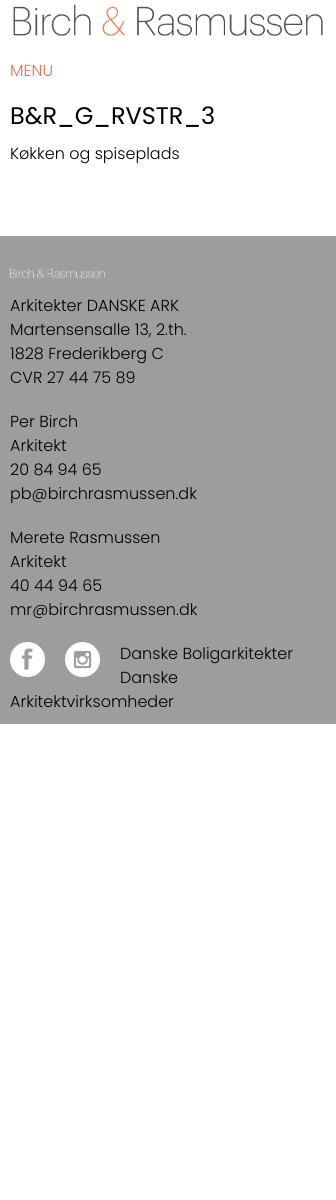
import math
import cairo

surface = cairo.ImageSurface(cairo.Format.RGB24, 336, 1200)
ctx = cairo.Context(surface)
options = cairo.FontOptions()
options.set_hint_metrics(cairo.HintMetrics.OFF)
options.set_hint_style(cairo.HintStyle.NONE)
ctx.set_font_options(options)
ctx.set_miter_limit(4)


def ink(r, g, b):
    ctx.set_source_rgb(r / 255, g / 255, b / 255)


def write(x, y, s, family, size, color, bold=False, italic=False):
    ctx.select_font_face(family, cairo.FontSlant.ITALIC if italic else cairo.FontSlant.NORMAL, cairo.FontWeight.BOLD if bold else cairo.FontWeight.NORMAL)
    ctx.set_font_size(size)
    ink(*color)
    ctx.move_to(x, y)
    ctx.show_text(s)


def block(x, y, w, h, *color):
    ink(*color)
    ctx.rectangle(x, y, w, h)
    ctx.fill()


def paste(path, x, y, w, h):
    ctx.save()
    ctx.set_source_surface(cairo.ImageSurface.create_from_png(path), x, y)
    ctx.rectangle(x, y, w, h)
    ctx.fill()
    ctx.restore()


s1 = dict(family="Poppins Light", size=16, color=(237, 105, 75))
s2 = dict(family="Poppins", size=24, color=(0, 0, 0))
s3 = dict(family="Poppins Light", size=16, color=(0, 0, 0))

ink(255, 255, 255)
ctx.paint()
paste("pic1.png", 13, 4, 310, 32)
write(10, 76, "MENU", **s1)
write(10, 124, "B&R_G_RVSTR_3", **s2)
write(10, 159, "Køkken og spiseplads", **s3)
block(0, 236, 336, 488, 157, 157, 156)
paste("pic2.png", 10, 268, 95, 11)
write(10, 311, "Arkitekter DANSKE ARK", **s3)
write(10, 335, "Martensensalle 13, 2.th.", **s3)
write(10, 359, "1828 Frederikberg C", **s3)
write(10, 383, "CVR 27 44 75 89", **s3)
write(10, 427, "Per Birch", **s3)
write(10, 451, "Arkitekt", **s3)
write(10, 475, "20 84 94 65", **s3)
write(10, 499, "pb@birchrasmussen.dk", **s3)
write(10, 543, "Merete Rasmussen", **s3)
write(10, 567, "Arkitekt", **s3)
write(10, 591, "40 44 94 65", **s3)
write(10, 615, "mr@birchrasmussen.dk", **s3)
paste("pic3.png", 10, 642, 35, 35)
paste("pic4.png", 65, 642, 35, 35)
write(120, 659, "Danske Boligarkitekter", **s3)
write(120, 683, "Danske", **s3)
write(10, 707, "Arkitektvirksomheder", **s3)
surface.write_to_png("screenshot.png")
